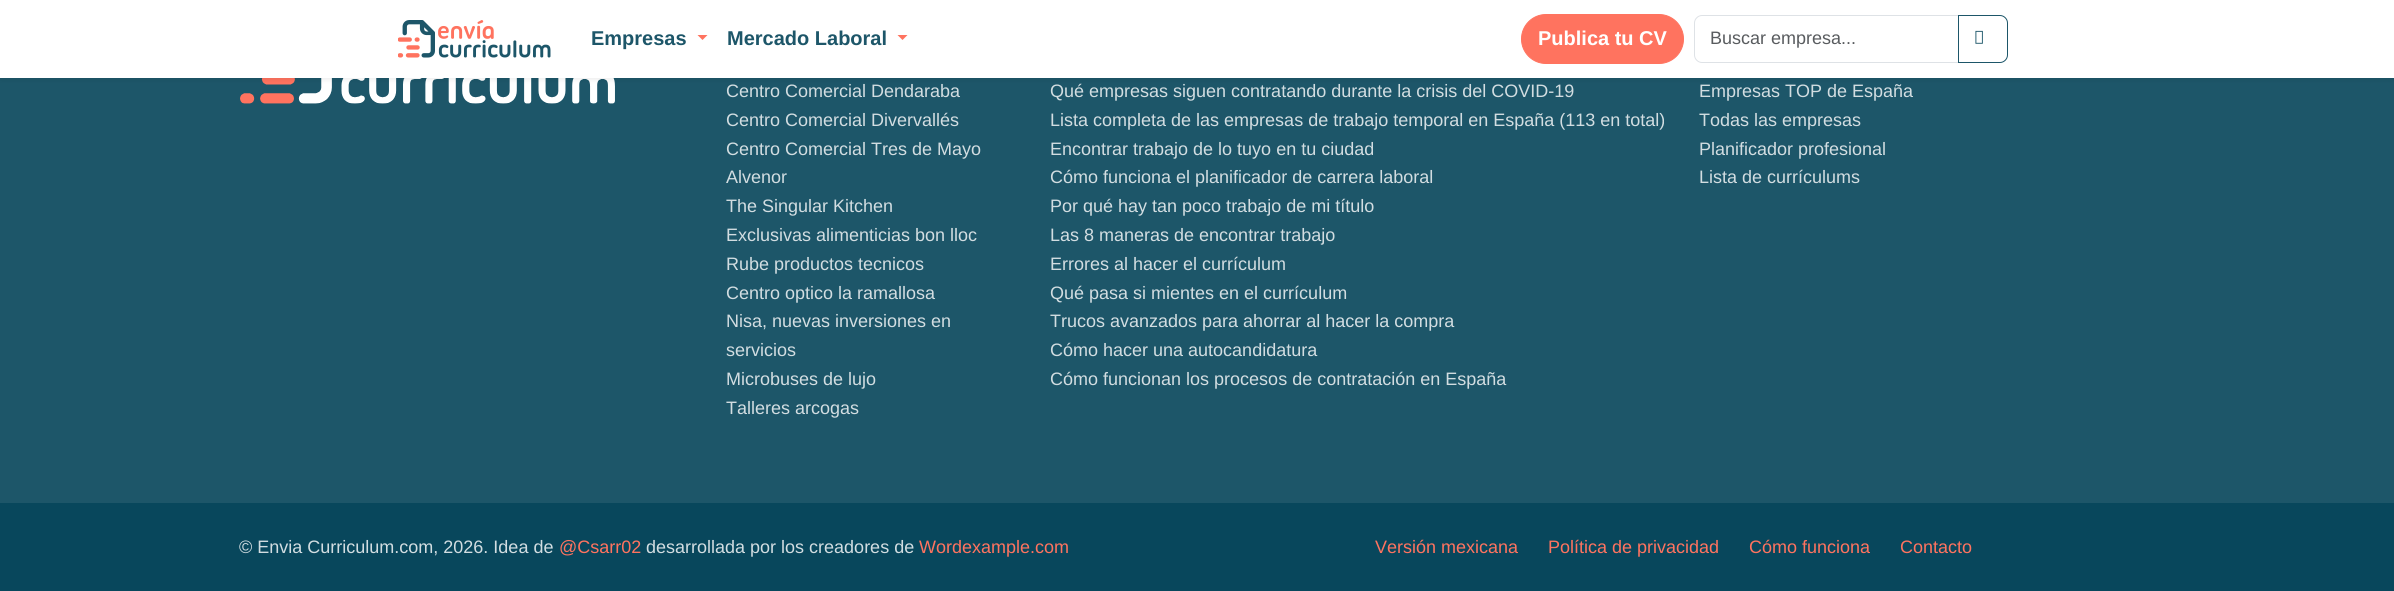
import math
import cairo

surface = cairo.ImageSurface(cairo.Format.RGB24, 2394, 591)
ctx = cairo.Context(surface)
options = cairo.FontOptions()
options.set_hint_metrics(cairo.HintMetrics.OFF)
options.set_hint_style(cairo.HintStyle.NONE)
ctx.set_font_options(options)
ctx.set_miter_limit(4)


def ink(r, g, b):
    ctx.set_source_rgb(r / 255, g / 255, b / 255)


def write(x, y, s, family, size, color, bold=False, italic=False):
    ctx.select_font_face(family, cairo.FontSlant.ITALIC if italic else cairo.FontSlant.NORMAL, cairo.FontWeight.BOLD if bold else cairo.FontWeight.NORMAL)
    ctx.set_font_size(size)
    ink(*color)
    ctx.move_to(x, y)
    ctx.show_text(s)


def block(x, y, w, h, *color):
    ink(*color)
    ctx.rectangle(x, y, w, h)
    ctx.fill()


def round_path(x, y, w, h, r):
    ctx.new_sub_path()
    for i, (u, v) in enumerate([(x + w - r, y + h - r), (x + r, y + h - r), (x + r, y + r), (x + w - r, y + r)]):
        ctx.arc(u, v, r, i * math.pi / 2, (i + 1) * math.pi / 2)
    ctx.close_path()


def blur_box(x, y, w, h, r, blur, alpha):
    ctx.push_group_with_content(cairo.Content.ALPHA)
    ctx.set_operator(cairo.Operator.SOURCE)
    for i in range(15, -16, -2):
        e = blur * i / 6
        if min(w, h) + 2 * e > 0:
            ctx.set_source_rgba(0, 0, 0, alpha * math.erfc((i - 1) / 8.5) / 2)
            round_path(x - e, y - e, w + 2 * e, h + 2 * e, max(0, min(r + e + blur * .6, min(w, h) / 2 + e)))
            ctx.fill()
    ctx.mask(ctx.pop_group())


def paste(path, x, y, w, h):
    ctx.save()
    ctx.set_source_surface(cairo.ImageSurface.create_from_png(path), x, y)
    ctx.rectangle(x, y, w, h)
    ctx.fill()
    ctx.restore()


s1 = dict(family="Liberation Sans", size=20, color=(29, 86, 105), bold=True)
s2 = dict(family="Liberation Sans", size=20, color=(255, 255, 255), bold=True)
s3 = dict(family="Liberation Sans", size=18, color=(89, 92, 95))
s4 = dict(family="Liberation Sans", size=18, color=(210, 221, 225))
s5 = dict(family="Liberation Sans", size=18, color=(255, 115, 95))

ink(29, 86, 105)
ctx.paint()
paste("pic3.png", 240, 78, 375, 26)
ink(0, 0, 0)
blur_box(0, 3, 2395, 77, 0, 2.5, 0.07)
block(0, 0, 2394, 78, 255, 255, 255)
paste("pic1.png", 398, 20, 153, 38)
write(591, 45, "Empresas", **s1)
ink(255, 115, 95)
ctx.new_path()
ctx.move_to(697.5, 35)
ctx.line_to(707.5, 35)
ctx.line_to(702.5, 40)
ctx.close_path()
ctx.fill()
write(727, 45, "Mercado Laboral", **s1)
ink(255, 115, 95)
ctx.new_path()
ctx.move_to(897.5, 35)
ctx.line_to(907.5, 35)
ctx.line_to(902.5, 40)
ctx.close_path()
ctx.fill()
round_path(1521.5, 14.5, 162, 49, 24.5)
ctx.fill_preserve()
ctx.set_line_width(1)
ctx.stroke()
write(1538, 45, "Publica tu CV", **s2)
ctx.new_path()
ctx.move_to(1702, 15.5)
ctx.line_to(1958.5, 15.5)
ctx.line_to(1958.5, 62.5)
ctx.line_to(1702, 62.5)
ctx.curve_to(1698, 62.5, 1694.5, 59, 1694.5, 55)
ctx.line_to(1694.5, 23)
ctx.curve_to(1694.5, 19, 1698, 15.5, 1702, 15.5)
ctx.close_path()
ink(222, 226, 230)
ctx.stroke()
write(1710, 44, "Buscar empresa...", **s3)
ctx.new_path()
ctx.move_to(1958.5, 15.5)
ctx.line_to(2000, 15.5)
ctx.curve_to(2004, 15.5, 2007.5, 19, 2007.5, 23)
ctx.line_to(2007.5, 55)
ctx.curve_to(2007.5, 59, 2004, 62.5, 2000, 62.5)
ctx.line_to(1958.5, 62.5)
ctx.close_path()
ink(29, 86, 105)
ctx.stroke()
paste("pic2.png", 1975, 30, 8, 14)
write(726, 97, "Centro Comercial Dendaraba", **s4)
write(726, 126, "Centro Comercial Divervallés", **s4)
write(726, 155, "Centro Comercial Tres de Mayo", **s4)
write(726, 183, "Alvenor", **s4)
write(726, 212, "The Singular Kitchen", **s4)
write(726, 241, "Exclusivas alimenticias bon lloc", **s4)
write(726, 270, "Rube productos tecnicos", **s4)
write(726, 299, "Centro optico la ramallosa", **s4)
write(726, 327, "Nisa, nuevas inversiones en", **s4)
write(726, 356, "servicios", **s4)
write(726, 385, "Microbuses de lujo", **s4)
write(726, 414, "Talleres arcogas", **s4)
write(1050, 97, "Qué empresas siguen contratando durante la crisis del COVID-19", **s4)
write(1050, 126, "Lista completa de las empresas de trabajo temporal en España (113 en total)", **s4)
write(1050, 155, "Encontrar trabajo de lo tuyo en tu ciudad", **s4)
write(1050, 183, "Cómo funciona el planificador de carrera laboral", **s4)
write(1050, 212, "Por qué hay tan poco trabajo de mi título", **s4)
write(1050, 241, "Las 8 maneras de encontrar trabajo", **s4)
write(1050, 270, "Errores al hacer el currículum", **s4)
write(1050, 299, "Qué pasa si mientes en el currículum", **s4)
write(1050, 327, "Trucos avanzados para ahorrar al hacer la compra", **s4)
write(1050, 356, "Cómo hacer una autocandidatura", **s4)
write(1050, 385, "Cómo funcionan los procesos de contratación en España", **s4)
write(1699, 97, "Empresas TOP de España", **s4)
write(1699, 126, "Todas las empresas", **s4)
write(1699, 155, "Planificador profesional", **s4)
write(1699, 183, "Lista de currículums", **s4)
block(0, 503, 2394, 88, 8, 71, 92)
write(239, 553, "© Envia Curriculum.com, 2026. Idea de", **s4)
write(559, 553, "@Csarr02", **s5)
write(646, 553, "desarrollada por los creadores de", **s4)
write(919, 553, "Wordexample.com", **s5)
write(1375, 553, "Versión mexicana", **s5)
write(1548, 553, "Política de privacidad", **s5)
write(1749, 553, "Cómo funciona", **s5)
write(1900, 553, "Contacto", **s5)
surface.write_to_png("screenshot.png")
